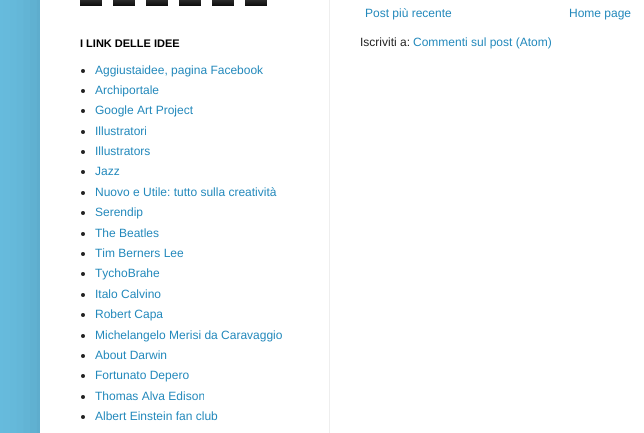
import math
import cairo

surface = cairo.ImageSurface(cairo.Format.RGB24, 644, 433)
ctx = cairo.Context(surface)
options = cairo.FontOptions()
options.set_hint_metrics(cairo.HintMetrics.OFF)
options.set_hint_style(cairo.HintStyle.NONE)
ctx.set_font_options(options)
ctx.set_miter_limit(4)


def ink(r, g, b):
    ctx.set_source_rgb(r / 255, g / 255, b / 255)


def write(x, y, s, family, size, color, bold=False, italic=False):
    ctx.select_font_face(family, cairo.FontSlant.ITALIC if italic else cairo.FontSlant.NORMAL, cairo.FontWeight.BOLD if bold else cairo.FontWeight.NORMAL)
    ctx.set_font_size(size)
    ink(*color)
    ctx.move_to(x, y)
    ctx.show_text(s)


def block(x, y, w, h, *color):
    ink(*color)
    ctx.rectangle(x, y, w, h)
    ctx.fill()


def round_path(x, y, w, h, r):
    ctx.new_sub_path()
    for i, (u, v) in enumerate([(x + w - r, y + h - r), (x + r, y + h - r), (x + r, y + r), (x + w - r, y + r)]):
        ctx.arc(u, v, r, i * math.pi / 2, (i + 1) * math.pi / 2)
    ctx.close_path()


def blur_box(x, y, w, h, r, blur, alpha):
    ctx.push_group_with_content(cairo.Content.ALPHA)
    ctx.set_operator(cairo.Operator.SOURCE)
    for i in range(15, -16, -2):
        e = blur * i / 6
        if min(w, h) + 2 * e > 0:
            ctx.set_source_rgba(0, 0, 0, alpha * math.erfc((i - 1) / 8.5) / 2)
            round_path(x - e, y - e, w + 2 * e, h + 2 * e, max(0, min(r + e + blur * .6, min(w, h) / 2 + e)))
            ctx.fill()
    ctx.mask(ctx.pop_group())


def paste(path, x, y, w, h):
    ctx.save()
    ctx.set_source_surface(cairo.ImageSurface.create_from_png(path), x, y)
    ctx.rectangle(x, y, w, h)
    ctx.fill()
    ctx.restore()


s1 = dict(family="Liberation Sans", size=12, color=(34, 136, 187))
s2 = dict(family="Liberation Sans", size=12, color=(34, 34, 34))
s3 = dict(family="Liberation Sans", size=11, color=(0, 0, 0), bold=True)

ink(102, 187, 221)
ctx.paint()
ink(0, 0, 0)
blur_box(40, -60, 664, 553, 0, 20, 0.15)
block(40, 0, 604, 433, 255, 255, 255)
block(329, 0, 1, 433, 238, 238, 238)
write(365, 17, "Post più recente", **s1)
write(569, 17, "Home page", **s1)
write(360, 46, "Iscriviti a:", **s2)
write(413, 46, "Commenti sul post (Atom)", **s1)
paste("pic1.png", 80, 0, 22, 6)
paste("pic1.png", 113, 0, 22, 6)
paste("pic1.png", 146, 0, 22, 6)
paste("pic1.png", 179, 0, 22, 6)
paste("pic1.png", 212, 0, 22, 6)
paste("pic1.png", 245, 0, 22, 6)
write(80, 47, "I LINK DELLE IDEE", **s3)
ink(34, 34, 34)
ctx.new_path()
ctx.arc(83, 71, 2, 0, 2 * math.pi)
ctx.fill()
write(95, 74, "Aggiustaidee, pagina Facebook", **s1)
ink(34, 34, 34)
ctx.new_path()
ctx.arc(83, 91, 2, 0, 2 * math.pi)
ctx.fill()
write(95, 94, "Archiportale", **s1)
ink(34, 34, 34)
ctx.new_path()
ctx.arc(83, 111, 2, 0, 2 * math.pi)
ctx.fill()
write(95, 114, "Google Art Project", **s1)
ink(34, 34, 34)
ctx.new_path()
ctx.arc(83, 132, 2, 0, 2 * math.pi)
ctx.fill()
write(95, 135, "Illustratori", **s1)
ink(34, 34, 34)
ctx.new_path()
ctx.arc(83, 152, 2, 0, 2 * math.pi)
ctx.fill()
write(95, 155, "Illustrators", **s1)
ink(34, 34, 34)
ctx.new_path()
ctx.arc(83, 172, 2, 0, 2 * math.pi)
ctx.fill()
write(95, 175, "Jazz", **s1)
ink(34, 34, 34)
ctx.new_path()
ctx.arc(83, 193, 2, 0, 2 * math.pi)
ctx.fill()
write(95, 196, "Nuovo e Utile: tutto sulla creatività", **s1)
ink(34, 34, 34)
ctx.new_path()
ctx.arc(83, 213, 2, 0, 2 * math.pi)
ctx.fill()
write(95, 216, "Serendip", **s1)
ink(34, 34, 34)
ctx.new_path()
ctx.arc(83, 234, 2, 0, 2 * math.pi)
ctx.fill()
write(95, 237, "The Beatles", **s1)
ink(34, 34, 34)
ctx.new_path()
ctx.arc(83, 254, 2, 0, 2 * math.pi)
ctx.fill()
write(95, 257, "Tim Berners Lee", **s1)
ink(34, 34, 34)
ctx.new_path()
ctx.arc(83, 274, 2, 0, 2 * math.pi)
ctx.fill()
write(95, 277, "TychoBrahe", **s1)
ink(34, 34, 34)
ctx.new_path()
ctx.arc(83, 295, 2, 0, 2 * math.pi)
ctx.fill()
write(95, 298, "Italo Calvino", **s1)
ink(34, 34, 34)
ctx.new_path()
ctx.arc(83, 315, 2, 0, 2 * math.pi)
ctx.fill()
write(95, 318, "Robert Capa", **s1)
ink(34, 34, 34)
ctx.new_path()
ctx.arc(83, 336, 2, 0, 2 * math.pi)
ctx.fill()
write(95, 339, "Michelangelo Merisi da Caravaggio", **s1)
ink(34, 34, 34)
ctx.new_path()
ctx.arc(83, 356, 2, 0, 2 * math.pi)
ctx.fill()
write(95, 359, "About Darwin", **s1)
ink(34, 34, 34)
ctx.new_path()
ctx.arc(83, 376, 2, 0, 2 * math.pi)
ctx.fill()
write(95, 379, "Fortunato Depero", **s1)
ink(34, 34, 34)
ctx.new_path()
ctx.arc(83, 397, 2, 0, 2 * math.pi)
ctx.fill()
write(95, 400, "Thomas Alva Edison", **s1)
ink(34, 34, 34)
ctx.new_path()
ctx.arc(83, 417, 2, 0, 2 * math.pi)
ctx.fill()
write(95, 420, "Albert Einstein fan club", **s1)
surface.write_to_png("screenshot.png")
